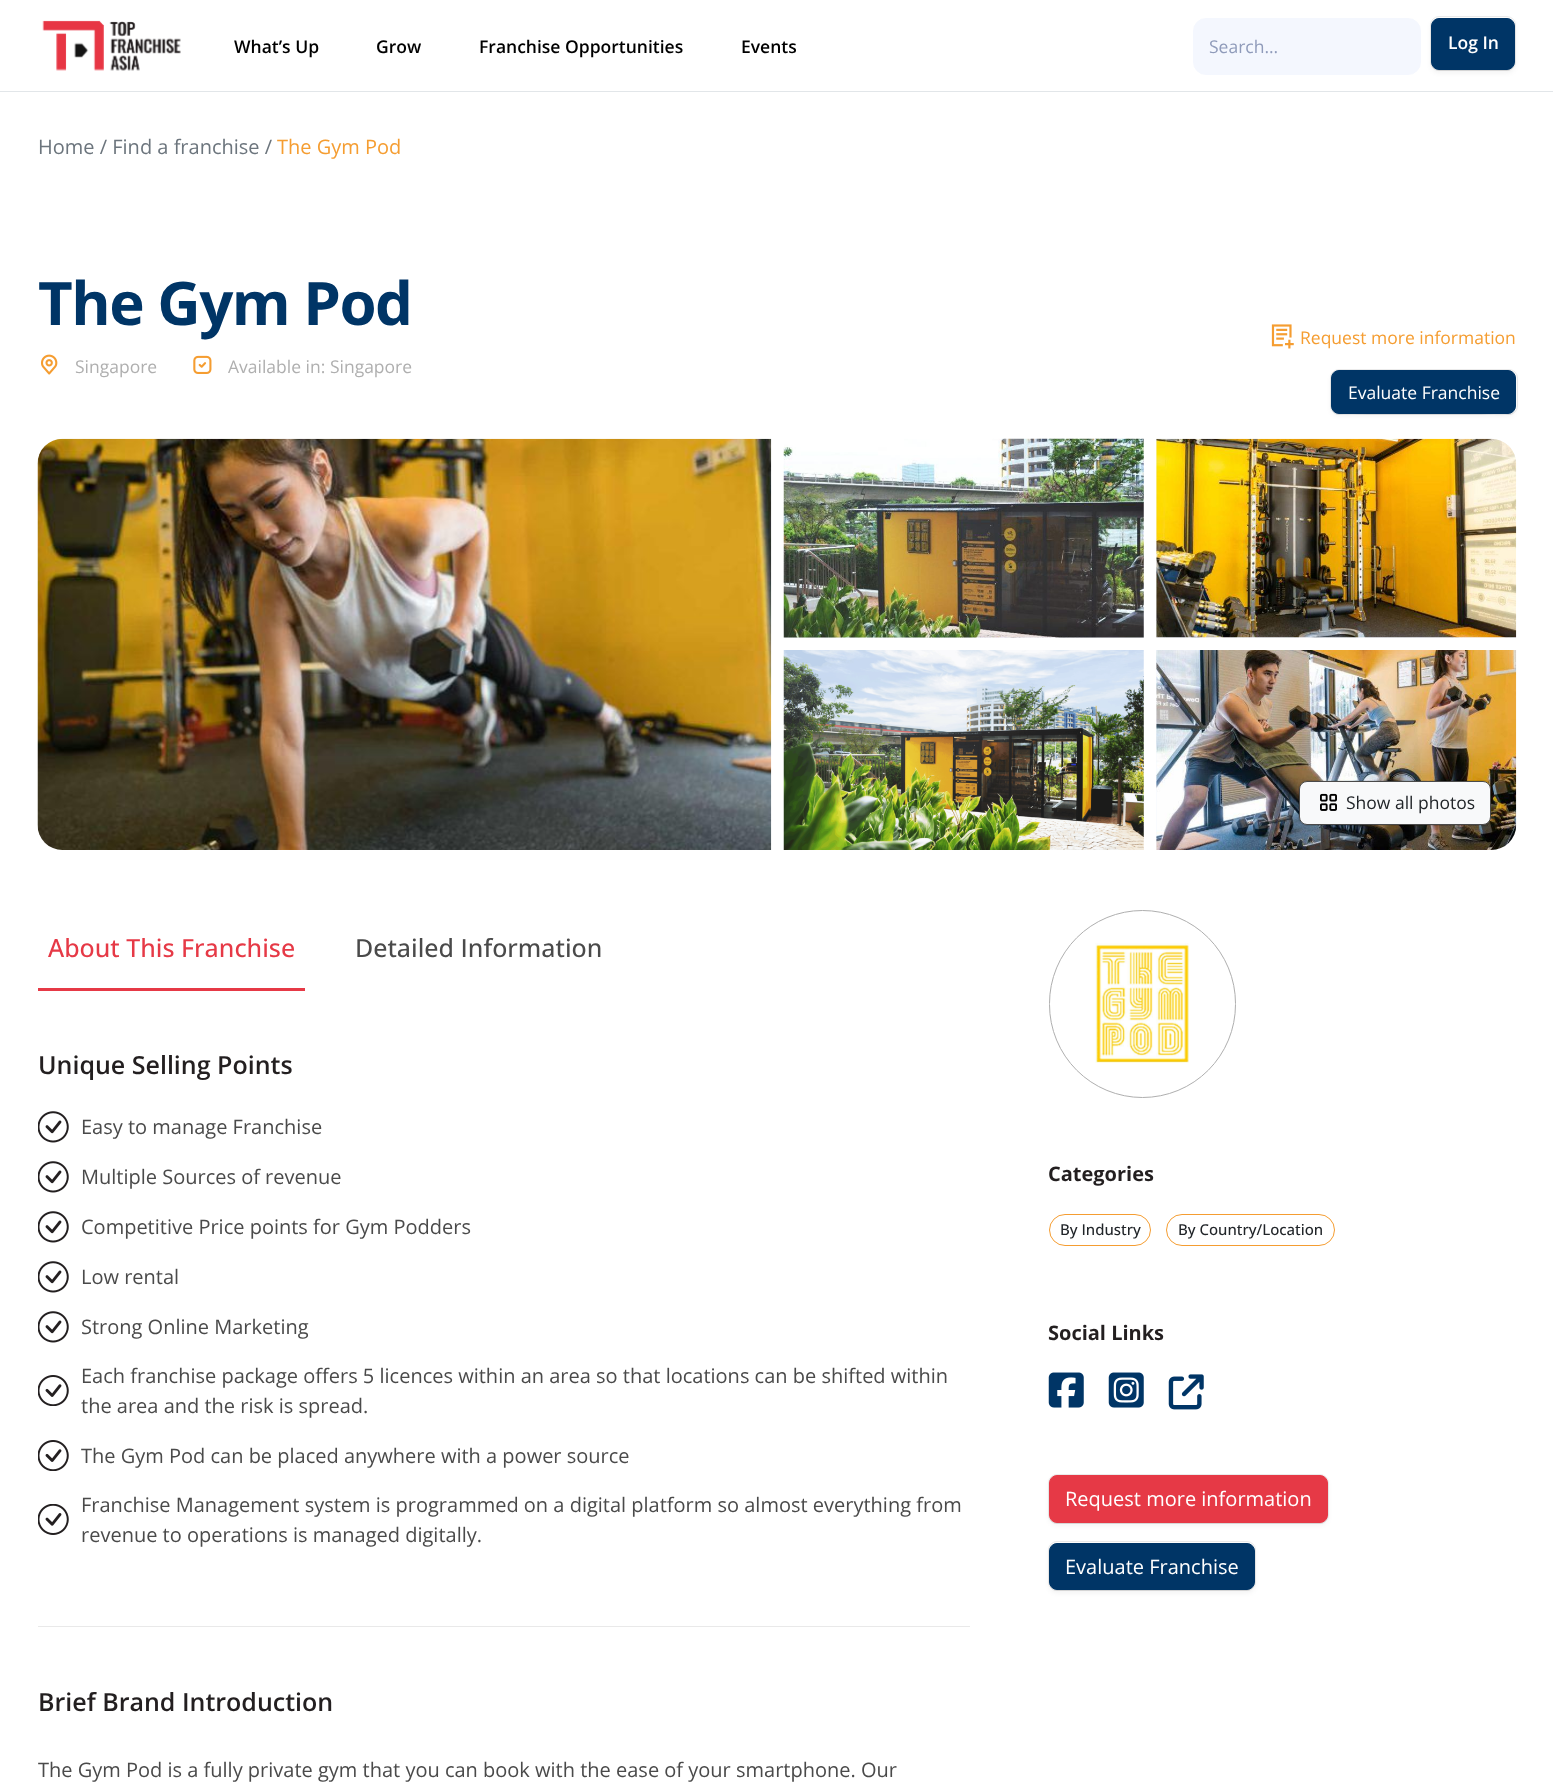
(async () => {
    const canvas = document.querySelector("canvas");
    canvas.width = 1553;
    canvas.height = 1786;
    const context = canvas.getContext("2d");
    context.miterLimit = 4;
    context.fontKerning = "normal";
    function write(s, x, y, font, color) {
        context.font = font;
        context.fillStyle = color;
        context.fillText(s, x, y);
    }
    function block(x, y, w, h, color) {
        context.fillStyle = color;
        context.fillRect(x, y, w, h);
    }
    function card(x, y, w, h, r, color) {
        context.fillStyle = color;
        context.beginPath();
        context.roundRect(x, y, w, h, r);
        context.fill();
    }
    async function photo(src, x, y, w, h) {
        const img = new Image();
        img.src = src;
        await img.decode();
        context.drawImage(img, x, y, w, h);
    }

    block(0, 0, 1553, 1786, "rgb(255, 255, 255)");
    block(0, 91, 1553, 1, "rgb(226, 230, 233)");
    await photo("media/1.png", 42, 20, 139, 51);
    write("What’s Up", 234, 53, "600 17.5px Open Sans", "rgb(0, 0, 0)");
    write("Grow", 376, 53, "600 17.5px Open Sans", "rgb(0, 0, 0)");
    write("Franchise Opportunities", 479, 53, "600 17.5px Open Sans", "rgb(0, 0, 0)");
    write("Events", 741, 53, "600 17.5px Open Sans", "rgb(0, 0, 0)");
    card(1194, 19, 226, 55, 11, "rgb(244, 247, 254)");
    context.beginPath();
    context.roundRect(1193.5, 18.5, 227, 56, 12.5);
    context.strokeStyle = "rgb(244, 247, 254)";
    context.stroke();
    write("Search...", 1209, 53, "17.5px Open Sans", "rgb(143, 155, 186)");
    context.fillStyle = "rgba(0, 0, 0, 0.05)";
    context.filter = "blur(2.5px)";
    context.beginPath();
    context.roundRect(1431, 20, 84, 53, 8);
    context.fill();
    context.filter = "none";
    context.beginPath();
    context.roundRect(1430.5, 16.5, 85, 54, 8.5);
    context.strokeStyle = "rgba(0, 0, 0, 0.08)";
    context.stroke();
    context.beginPath();
    context.moveTo(1431, 25);
    context.lineTo(1431, 63);
    context.bezierCurveTo(1431, 67, 1435, 71, 1439, 71);
    context.lineTo(1507, 71);
    context.bezierCurveTo(1511, 71, 1515, 67, 1515, 63);
    context.lineTo(1515, 62);
    context.bezierCurveTo(1515, 67, 1512, 70, 1508, 70);
    context.lineTo(1439, 70);
    context.bezierCurveTo(1435, 70, 1431, 67, 1431, 62);
    context.closePath();
    context.fill();
    context.fillStyle = "rgb(0, 53, 102)";
    context.beginPath();
    context.roundRect(1431.5, 18.5, 83, 51, 7.5);
    context.fill();
    context.strokeStyle = "rgb(0, 53, 102)";
    context.stroke();
    write("Log In", 1448, 49, "600 17.5px Open Sans", "rgb(255, 255, 255)");
    write("Home / Find a franchise /", 38, 154, "20px Open Sans", "rgb(108, 117, 125)");
    write("The Gym Pod", 277, 154, "20px Open Sans", "rgb(245, 157, 49)");
    context.letterSpacing = "-1.5px";
    write("The Gym Pod", 38, 325, "bold 60px Open Sans", "rgb(0, 53, 102)");
    await photo("media/2.png", 41, 354, 17, 21);
    context.letterSpacing = "0px";
    write("Singapore", 75, 373, "17.5px Open Sans", "rgb(175, 175, 175)");
    await photo("media/3.png", 193, 355, 19, 19);
    write("Available in: Singapore", 228, 373, "17.5px Open Sans", "rgb(175, 175, 175)");
    await photo("media/4.png", 1271, 324, 23, 25);
    write("Request more information", 1300, 344, "17.5px Open Sans", "rgb(245, 157, 49)");
    context.fillStyle = "rgba(0, 0, 0, 0.05)";
    context.filter = "blur(2.5px)";
    context.beginPath();
    context.roundRect(1331, 373, 185, 43, 8);
    context.fill();
    context.filter = "none";
    context.beginPath();
    context.roundRect(1330.5, 369.5, 187, 45, 8.5);
    context.strokeStyle = "rgba(0, 0, 0, 0.08)";
    context.stroke();
    context.beginPath();
    context.moveTo(1331, 377);
    context.lineTo(1331, 407);
    context.bezierCurveTo(1331, 411, 1335, 415, 1339, 415);
    context.lineTo(1508, 415);
    context.bezierCurveTo(1512, 415, 1515, 412, 1516, 409);
    context.bezierCurveTo(1512, 419, 1488, 414, 1480, 414);
    context.lineTo(1367, 414);
    context.bezierCurveTo(1356, 414, 1334, 419, 1331, 408);
    context.closePath();
    context.fill();
    context.fillStyle = "rgb(0, 53, 102)";
    context.beginPath();
    context.roundRect(1331.5, 370.5, 184, 43, 7.5);
    context.fill();
    context.strokeStyle = "rgb(0, 53, 102)";
    context.stroke();
    write("Evaluate Franchise", 1348, 399, "17.5px Open Sans", "rgb(255, 255, 255)");
    await photo("media/5.png", 37, 438, 735, 412);
    block(784, 439, 360, 199, "rgb(244, 247, 254)");
    await photo("media/6.png", 783, 438, 361, 200);
    context.beginPath();
    context.roundRect(1156, 439, 360, 199, [0, 25, 0, 0]);
    context.fill();
    await photo("media/7.png", 1156, 438, 361, 200);
    await photo("media/8.png", 783, 650, 361, 200);
    context.beginPath();
    context.roundRect(1156, 650, 360, 200, [0, 0, 25, 0]);
    context.fill();
    await photo("media/9.png", 1156, 650, 361, 200);
    context.fillStyle = "rgba(0, 0, 0, 0.05)";
    context.filter = "blur(2.5px)";
    context.beginPath();
    context.roundRect(1299, 784, 192, 44, 8);
    context.fill();
    context.filter = "none";
    context.beginPath();
    context.roundRect(1298.5, 780.5, 194, 45, 8.5);
    context.strokeStyle = "rgba(0, 0, 0, 0.08)";
    context.stroke();
    context.beginPath();
    context.moveTo(1299, 821);
    context.bezierCurveTo(1301, 824, 1304, 826, 1307, 826);
    context.lineTo(1483, 826);
    context.bezierCurveTo(1486, 826, 1489, 824, 1491, 821);
    context.bezierCurveTo(1489, 823, 1487, 825, 1484, 825);
    context.lineTo(1306, 825);
    context.bezierCurveTo(1303, 825, 1301, 823, 1299, 821);
    context.closePath();
    context.fill();
    context.fillStyle = "rgb(248, 249, 250)";
    context.beginPath();
    context.roundRect(1299.5, 781.5, 191, 43, 7.5);
    context.fill();
    context.strokeStyle = "rgb(74, 74, 74)";
    context.stroke();
    await photo("media/10.png", 1320, 793, 17, 18);
    write("Show all photos", 1346, 809, "17.5px Open Sans", "rgb(33, 37, 41)");
    block(38, 988, 267, 3, "rgb(230, 57, 70)");
    write("About This Franchise", 48, 957, "500 25px Open Sans", "rgb(230, 57, 70)");
    write("Detailed Information", 355, 957, "500 25px Open Sans", "rgb(74, 74, 74)");
    write("Unique Selling Points", 38, 1074, "600 25px Open Sans", "rgb(35, 31, 32)");
    await photo("media/11.png", 38, 1111, 31, 32);
    write("Easy to manage Franchise", 81, 1134, "20px Open Sans", "rgb(74, 74, 74)");
    await photo("media/11.png", 38, 1161, 31, 32);
    write("Multiple Sources of revenue", 81, 1184, "20px Open Sans", "rgb(74, 74, 74)");
    await photo("media/11.png", 38, 1211, 31, 32);
    write("Competitive Price points for Gym Podders", 81, 1234, "20px Open Sans", "rgb(74, 74, 74)");
    await photo("media/11.png", 38, 1261, 31, 32);
    write("Low rental", 81, 1284, "20px Open Sans", "rgb(74, 74, 74)");
    await photo("media/11.png", 38, 1311, 31, 32);
    write("Strong Online Marketing", 81, 1334, "20px Open Sans", "rgb(74, 74, 74)");
    await photo("media/12.png", 38, 1375, 31, 31);
    write("Each franchise package offers 5 licences within an area so that locations can be shifted within", 81, 1383, "20px Open Sans", "rgb(74, 74, 74)");
    write("the area and the risk is spread.", 81, 1413, "20px Open Sans", "rgb(74, 74, 74)");
    await photo("media/12.png", 38, 1440, 31, 31);
    write("The Gym Pod can be placed anywhere with a power source", 81, 1463, "20px Open Sans", "rgb(74, 74, 74)");
    await photo("media/13.png", 38, 1504, 31, 31);
    write("Franchise Management system is programmed on a digital platform so almost everything from", 81, 1512, "20px Open Sans", "rgb(74, 74, 74)");
    write("revenue to operations is managed digitally.", 81, 1542, "20px Open Sans", "rgb(74, 74, 74)");
    block(38, 1626, 932, 1, "rgb(233, 233, 233)");
    write("Brief Brand Introduction", 38, 1711, "600 25px Open Sans", "rgb(35, 31, 32)");
    write("The Gym Pod is a fully private gym that you can book with the ease of your smartphone. Our", 38, 1777, "20px Open Sans", "rgb(74, 74, 74)");
    context.beginPath();
    context.roundRect(1049.5, 910.5, 186, 187, 93);
    context.strokeStyle = "rgb(175, 175, 175)";
    context.stroke();
    await photo("media/14.png", 1095, 943, 94, 120);
    write("Categories", 1048, 1181, "bold 20px Open Sans", "rgb(35, 31, 32)");
    context.beginPath();
    context.roundRect(1049.5, 1214.5, 101, 31, 15.5);
    context.strokeStyle = "rgb(245, 157, 49)";
    context.stroke();
    write("By Industry", 1060, 1235, "500 15px Open Sans", "rgb(33, 37, 41)");
    context.beginPath();
    context.roundRect(1166.5, 1214.5, 168, 31, 15.5);
    context.stroke();
    write("By Country/Location", 1178, 1235, "500 15px Open Sans", "rgb(33, 37, 41)");
    write("Social Links", 1048, 1340, "bold 20px Open Sans", "rgb(35, 31, 32)");
    await photo("media/15.png", 1048, 1372, 36, 36);
    await photo("media/16.png", 1108, 1372, 36, 36);
    await photo("media/17.png", 1168, 1374, 36, 36);
    context.fillStyle = "rgba(0, 0, 0, 0.05)";
    context.filter = "blur(2.5px)";
    context.beginPath();
    context.roundRect(1049, 1478, 279, 47, 8);
    context.fill();
    context.filter = "none";
    context.beginPath();
    context.roundRect(1048.5, 1474.5, 280, 49, 8.5);
    context.strokeStyle = "rgba(0, 0, 0, 0.08)";
    context.stroke();
    context.beginPath();
    context.moveTo(1049, 1517);
    context.bezierCurveTo(1050, 1521, 1053, 1524, 1057, 1524);
    context.lineTo(1320, 1524);
    context.bezierCurveTo(1324, 1524, 1328, 1520, 1328, 1516);
    context.lineTo(1328, 1484);
    context.lineTo(1327, 1481);
    context.lineTo(1328, 1515);
    context.bezierCurveTo(1328, 1519, 1324, 1522, 1320, 1522);
    context.lineTo(1056, 1522);
    context.bezierCurveTo(1053, 1522, 1050, 1520, 1049, 1517);
    context.closePath();
    context.fill();
    context.fillStyle = "rgb(230, 57, 70)";
    context.beginPath();
    context.roundRect(1049.5, 1475.5, 278, 47, 7.5);
    context.fill();
    context.strokeStyle = "rgb(230, 57, 70)";
    context.stroke();
    write("Request more information", 1065, 1506, "20px Open Sans", "rgb(255, 255, 255)");
    context.fillStyle = "rgba(0, 0, 0, 0.05)";
    context.filter = "blur(2.5px)";
    context.beginPath();
    context.roundRect(1049, 1545, 206, 48, 8);
    context.fill();
    context.filter = "none";
    context.beginPath();
    context.roundRect(1048.5, 1541.5, 207, 49, 8.5);
    context.strokeStyle = "rgba(0, 0, 0, 0.08)";
    context.stroke();
    context.beginPath();
    context.moveTo(1049, 1586);
    context.bezierCurveTo(1051, 1589, 1054, 1591, 1057, 1591);
    context.lineTo(1247, 1591);
    context.bezierCurveTo(1251, 1591, 1255, 1587, 1255, 1583);
    context.lineTo(1255, 1582);
    context.bezierCurveTo(1255, 1587, 1252, 1590, 1248, 1590);
    context.lineTo(1056, 1590);
    context.bezierCurveTo(1053, 1590, 1051, 1588, 1049, 1586);
    context.closePath();
    context.fill();
    context.fillStyle = "rgb(0, 53, 102)";
    context.beginPath();
    context.roundRect(1049.5, 1543.5, 205, 46, 7.5);
    context.fill();
    context.strokeStyle = "rgb(0, 53, 102)";
    context.stroke();
    write("Evaluate Franchise", 1065, 1574, "20px Open Sans", "rgb(255, 255, 255)");
})();
